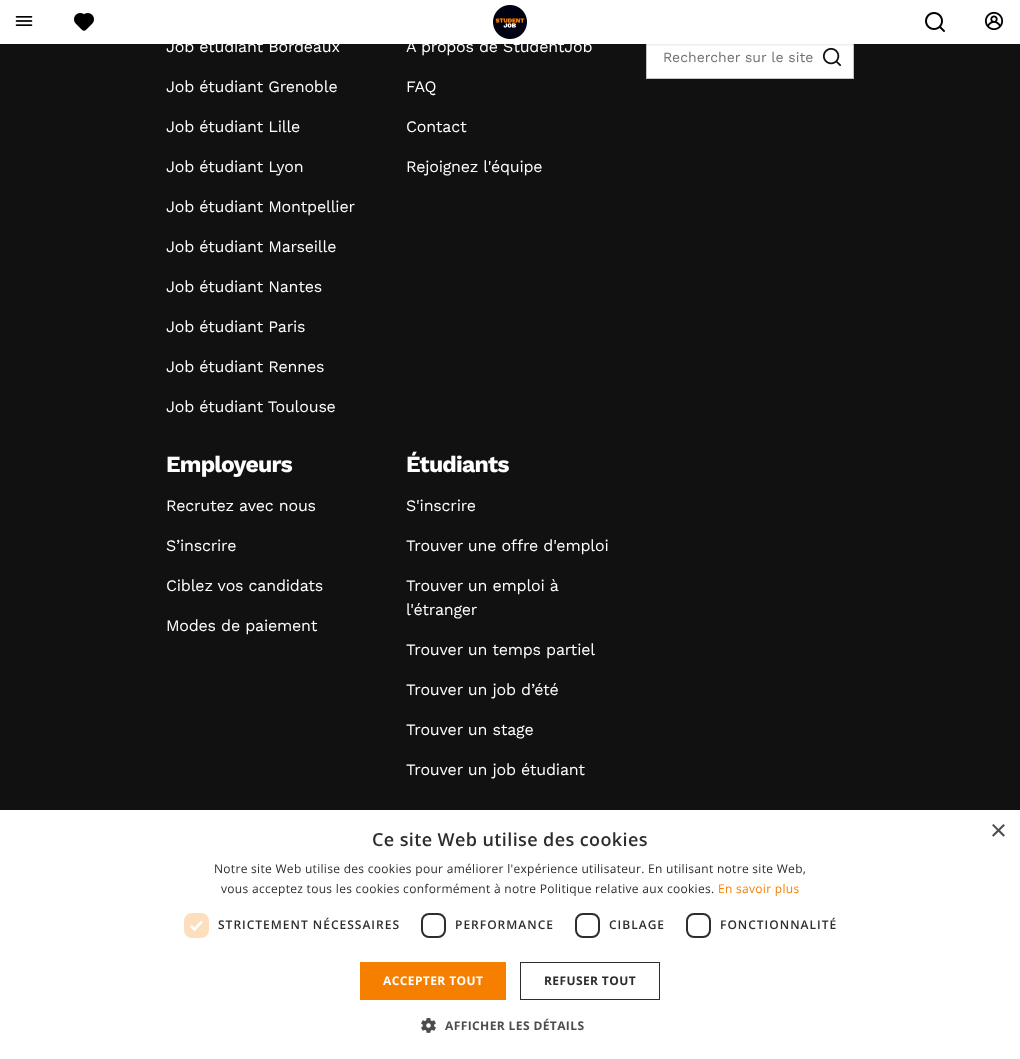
(async () => {
    const canvas = document.querySelector("canvas");
    canvas.width = 1020;
    canvas.height = 1059;
    const context = canvas.getContext("2d");
    context.miterLimit = 4;
    context.fontKerning = "normal";
    function write(s, x, y, font, color) {
        context.font = font;
        context.fillStyle = color;
        context.fillText(s, x, y);
    }
    function block(x, y, w, h, color) {
        context.fillStyle = color;
        context.fillRect(x, y, w, h);
    }
    function card(x, y, w, h, r, color) {
        context.fillStyle = color;
        context.beginPath();
        context.roundRect(x, y, w, h, r);
        context.fill();
    }
    async function photo(src, x, y, w, h) {
        const img = new Image();
        img.src = src;
        await img.decode();
        context.drawImage(img, x, y, w, h);
    }

    block(0, 0, 1020, 1059, "rgb(17, 17, 17)");
    block(647, 44, 206, 34, "rgb(255, 255, 255)");
    context.strokeStyle = "rgb(195, 195, 195)";
    context.strokeRect(646.5, 35.5, 207, 43);
    await photo("media/6.png", 822, 47, 20, 19);
    context.fillStyle = "rgba(0, 0, 0, 0.1)";
    context.filter = "blur(1px)";
    context.beginPath();
    context.rect(0, 1, 1020, 44);
    context.fill();
    context.filter = "none";
    block(0, 0, 1020, 44, "rgb(255, 255, 255)");
    await photo("media/1.png", 15, 16, 18, 10);
    await photo("media/2.png", 74, 13, 20, 18);
    await photo("media/3.png", 493, 5, 34, 34);
    await photo("media/4.png", 925, 12, 20, 20);
    await photo("media/5.png", 984, 11, 20, 20);
    context.letterSpacing = "-0.2px";
    write("Job étudiant Bordeaux", 166, 52, "16px Work Sans", "rgb(255, 255, 255)");
    write("Job étudiant Grenoble", 166, 92, "16px Work Sans", "rgb(255, 255, 255)");
    write("Job étudiant Lille", 166, 132, "16px Work Sans", "rgb(255, 255, 255)");
    write("Job étudiant Lyon", 166, 172, "16px Work Sans", "rgb(255, 255, 255)");
    write("Job étudiant Montpellier", 166, 212, "16px Work Sans", "rgb(255, 255, 255)");
    write("Job étudiant Marseille", 166, 252, "16px Work Sans", "rgb(255, 255, 255)");
    write("Job étudiant Nantes", 166, 292, "16px Work Sans", "rgb(255, 255, 255)");
    write("Job étudiant Paris", 166, 332, "16px Work Sans", "rgb(255, 255, 255)");
    write("Job étudiant Rennes", 166, 372, "16px Work Sans", "rgb(255, 255, 255)");
    write("Job étudiant Toulouse", 166, 412, "16px Work Sans", "rgb(255, 255, 255)");
    write("A propos de StudentJob", 406, 52, "16px Work Sans", "rgb(255, 255, 255)");
    write("FAQ", 406, 92, "16px Work Sans", "rgb(255, 255, 255)");
    write("Contact", 406, 132, "16px Work Sans", "rgb(255, 255, 255)");
    write("Rejoignez l'équipe", 406, 172, "16px Work Sans", "rgb(255, 255, 255)");
    context.letterSpacing = "-0.75px";
    write("Employeurs", 166, 472, "bold 23px Work Sans", "rgb(255, 255, 255)");
    context.letterSpacing = "-0.2px";
    write("Recrutez avec nous", 166, 511, "16px Work Sans", "rgb(255, 255, 255)");
    write("S’inscrire", 166, 551, "16px Work Sans", "rgb(255, 255, 255)");
    write("Ciblez vos candidats", 166, 591, "16px Work Sans", "rgb(255, 255, 255)");
    write("Modes de paiement", 166, 631, "16px Work Sans", "rgb(255, 255, 255)");
    context.letterSpacing = "-0.75px";
    write("Étudiants", 406, 472, "bold 23px Work Sans", "rgb(255, 255, 255)");
    context.letterSpacing = "-0.2px";
    write("S'inscrire", 406, 511, "16px Work Sans", "rgb(255, 255, 255)");
    write("Trouver une offre d'emploi", 406, 551, "16px Work Sans", "rgb(255, 255, 255)");
    write("Trouver un emploi à", 406, 591, "16px Work Sans", "rgb(255, 255, 255)");
    write("l'étranger", 406, 615, "16px Work Sans", "rgb(255, 255, 255)");
    write("Trouver un temps partiel", 406, 655, "16px Work Sans", "rgb(255, 255, 255)");
    write("Trouver un job d’été", 406, 695, "16px Work Sans", "rgb(255, 255, 255)");
    write("Trouver un stage", 406, 735, "16px Work Sans", "rgb(255, 255, 255)");
    write("Trouver un job étudiant", 406, 775, "16px Work Sans", "rgb(255, 255, 255)");
    context.letterSpacing = "0px";
    write("Rechercher sur le site", 663, 62, "14px Work Sans", "rgb(113, 113, 113)");
    block(0, 810, 1020, 249, "rgb(255, 255, 255)");
    write("×", 990, 840, "29px Liberation Sans", "rgb(77, 77, 77)");
    context.letterSpacing = "0.4px";
    write("Ce site Web utilise des cookies", 372, 846, "600 18px Open Sans", "rgb(45, 45, 45)");
    context.letterSpacing = "0.3px";
    write("Notre site Web utilise des cookies pour améliorer l'expérience utilisateur. En utilisant notre site Web,", 214, 873, "12px Open Sans", "rgb(45, 45, 45)");
    write("vous acceptez tous les cookies conformément à notre Politique relative aux cookies.", 221, 893, "12px Open Sans", "rgb(45, 45, 45)");
    write("En savoir plus", 718, 893, "12px Open Sans", "rgb(247, 127, 0)");
    card(184, 913, 25, 25, 8, "rgb(253, 222, 189)");
    context.beginPath();
    context.moveTo(191, 926);
    context.lineTo(194.5, 929.5);
    context.lineTo(202, 921.5);
    context.strokeStyle = "rgb(255, 255, 255)";
    context.lineWidth = 2.6;
    context.stroke();
    context.letterSpacing = "1px";
    write("STRICTEMENT NÉCESSAIRES", 218, 929, "600 12px Open Sans", "rgb(45, 45, 45)");
    context.beginPath();
    context.roundRect(422, 914, 23, 23, 7);
    context.strokeStyle = "rgb(45, 45, 45)";
    context.lineWidth = 2;
    context.stroke();
    write("PERFORMANCE", 455, 929, "600 12px Open Sans", "rgb(45, 45, 45)");
    context.beginPath();
    context.roundRect(576, 914, 23, 23, 7);
    context.stroke();
    write("CIBLAGE", 609, 929, "600 12px Open Sans", "rgb(45, 45, 45)");
    context.beginPath();
    context.roundRect(687, 914, 23, 23, 7);
    context.stroke();
    write("FONCTIONNALITÉ", 720, 929, "600 12px Open Sans", "rgb(45, 45, 45)");
    block(360, 962, 146, 38, "rgb(247, 127, 0)");
    context.letterSpacing = "0.4px";
    write("ACCEPTER TOUT", 383, 985, "bold 12px Open Sans", "rgb(255, 255, 255)");
    context.lineWidth = 1;
    context.strokeRect(520.5, 962.5, 139, 37);
    write("REFUSER TOUT", 544, 985, "bold 12px Open Sans", "rgb(45, 45, 45)");
    await photo("media/7.png", 421, 1018, 15, 15);
    write("AFFICHER LES DÉTAILS", 445, 1030, "bold 12px Open Sans", "rgb(77, 77, 77)");
})();
